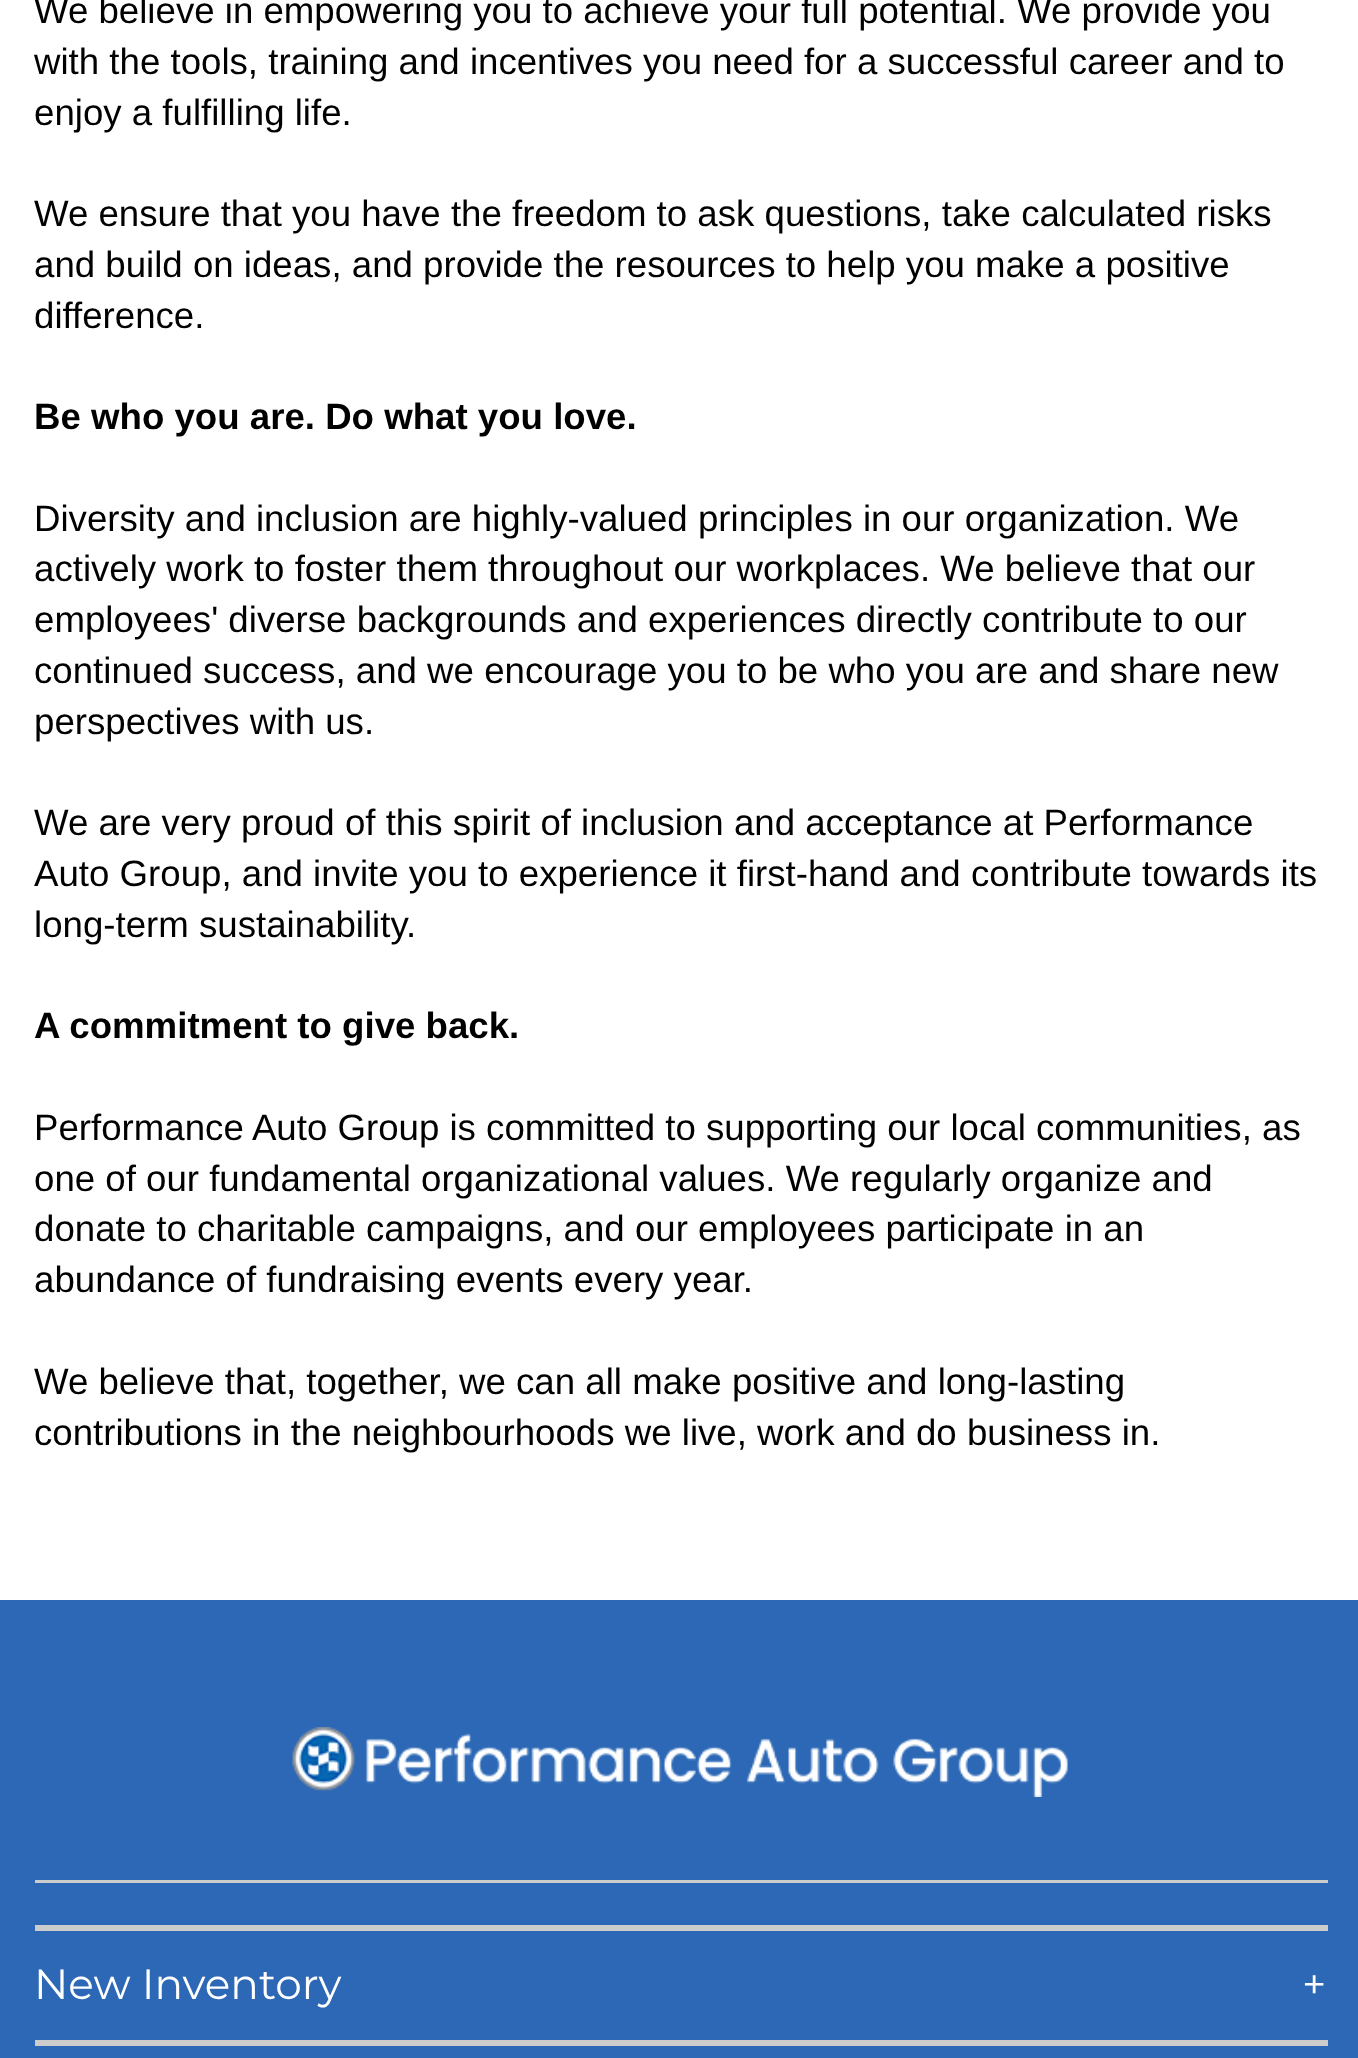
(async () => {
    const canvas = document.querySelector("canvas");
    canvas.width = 1358;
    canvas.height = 2058;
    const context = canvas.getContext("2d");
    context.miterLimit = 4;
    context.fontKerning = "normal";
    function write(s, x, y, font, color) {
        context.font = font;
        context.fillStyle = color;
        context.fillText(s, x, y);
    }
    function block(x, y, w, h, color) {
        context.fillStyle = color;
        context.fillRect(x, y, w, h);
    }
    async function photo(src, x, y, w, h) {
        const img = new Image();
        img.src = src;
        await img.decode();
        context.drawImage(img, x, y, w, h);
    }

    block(0, 0, 1358, 2058, "rgb(255, 255, 255)");
    write("We believe in empowering you to achieve your full potential. We provide you", 34, 23, "36.65px Liberation Sans", "rgb(0, 0, 0)");
    write("with the tools, training and incentives you need for a successful career and to", 34, 74, "36.65px Liberation Sans", "rgb(0, 0, 0)");
    write("enjoy a fulfilling life.", 34, 125, "36.65px Liberation Sans", "rgb(0, 0, 0)");
    write("We ensure that you have the freedom to ask questions, take calculated risks", 34, 226, "36.65px Liberation Sans", "rgb(0, 0, 0)");
    write("and build on ideas, and provide the resources to help you make a positive", 34, 277, "36.65px Liberation Sans", "rgb(0, 0, 0)");
    write("difference.", 34, 328, "36.65px Liberation Sans", "rgb(0, 0, 0)");
    write("Be who you are. Do what you love.", 34, 429, "bold 36.65px Liberation Sans", "rgb(0, 0, 0)");
    write("Diversity and inclusion are highly-valued principles in our organization. We", 34, 531, "36.65px Liberation Sans", "rgb(0, 0, 0)");
    write("actively work to foster them throughout our workplaces. We believe that our", 34, 581, "36.65px Liberation Sans", "rgb(0, 0, 0)");
    write("employees' diverse backgrounds and experiences directly contribute to our", 34, 632, "36.65px Liberation Sans", "rgb(0, 0, 0)");
    write("continued success, and we encourage you to be who you are and share new", 34, 683, "36.65px Liberation Sans", "rgb(0, 0, 0)");
    write("perspectives with us.", 34, 734, "36.65px Liberation Sans", "rgb(0, 0, 0)");
    write("We are very proud of this spirit of inclusion and acceptance at Performance", 34, 835, "36.65px Liberation Sans", "rgb(0, 0, 0)");
    write("Auto Group, and invite you to experience it first-hand and contribute towards its", 34, 886, "36.65px Liberation Sans", "rgb(0, 0, 0)");
    write("long-term sustainability.", 34, 937, "36.65px Liberation Sans", "rgb(0, 0, 0)");
    write("A commitment to give back.", 34, 1038, "bold 36.65px Liberation Sans", "rgb(0, 0, 0)");
    write("Performance Auto Group is committed to supporting our local communities, as", 34, 1140, "36.65px Liberation Sans", "rgb(0, 0, 0)");
    write("one of our fundamental organizational values. We regularly organize and", 34, 1191, "36.65px Liberation Sans", "rgb(0, 0, 0)");
    write("donate to charitable campaigns, and our employees participate in an", 34, 1241, "36.65px Liberation Sans", "rgb(0, 0, 0)");
    write("abundance of fundraising events every year.", 34, 1292, "36.65px Liberation Sans", "rgb(0, 0, 0)");
    write("We believe that, together, we can all make positive and long-lasting", 34, 1394, "36.65px Liberation Sans", "rgb(0, 0, 0)");
    write("contributions in the neighbourhoods we live, work and do business in.", 34, 1445, "36.65px Liberation Sans", "rgb(0, 0, 0)");
    block(0, 1600, 1358, 458, "rgb(44, 104, 181)");
    await photo("media/1.png", 292, 1727, 776, 70);
    block(35, 1880, 1293, 3, "rgb(204, 204, 204)");
    block(35, 1925, 1293, 6, "rgb(204, 204, 204)");
    block(35, 2040, 1293, 6, "rgb(204, 204, 204)");
    write("New Inventory", 34, 1999, "42.25px Montserrat", "rgb(255, 255, 255)");
    write("+", 1302, 1999, "42.25px Montserrat", "rgb(255, 255, 255)");
})();
